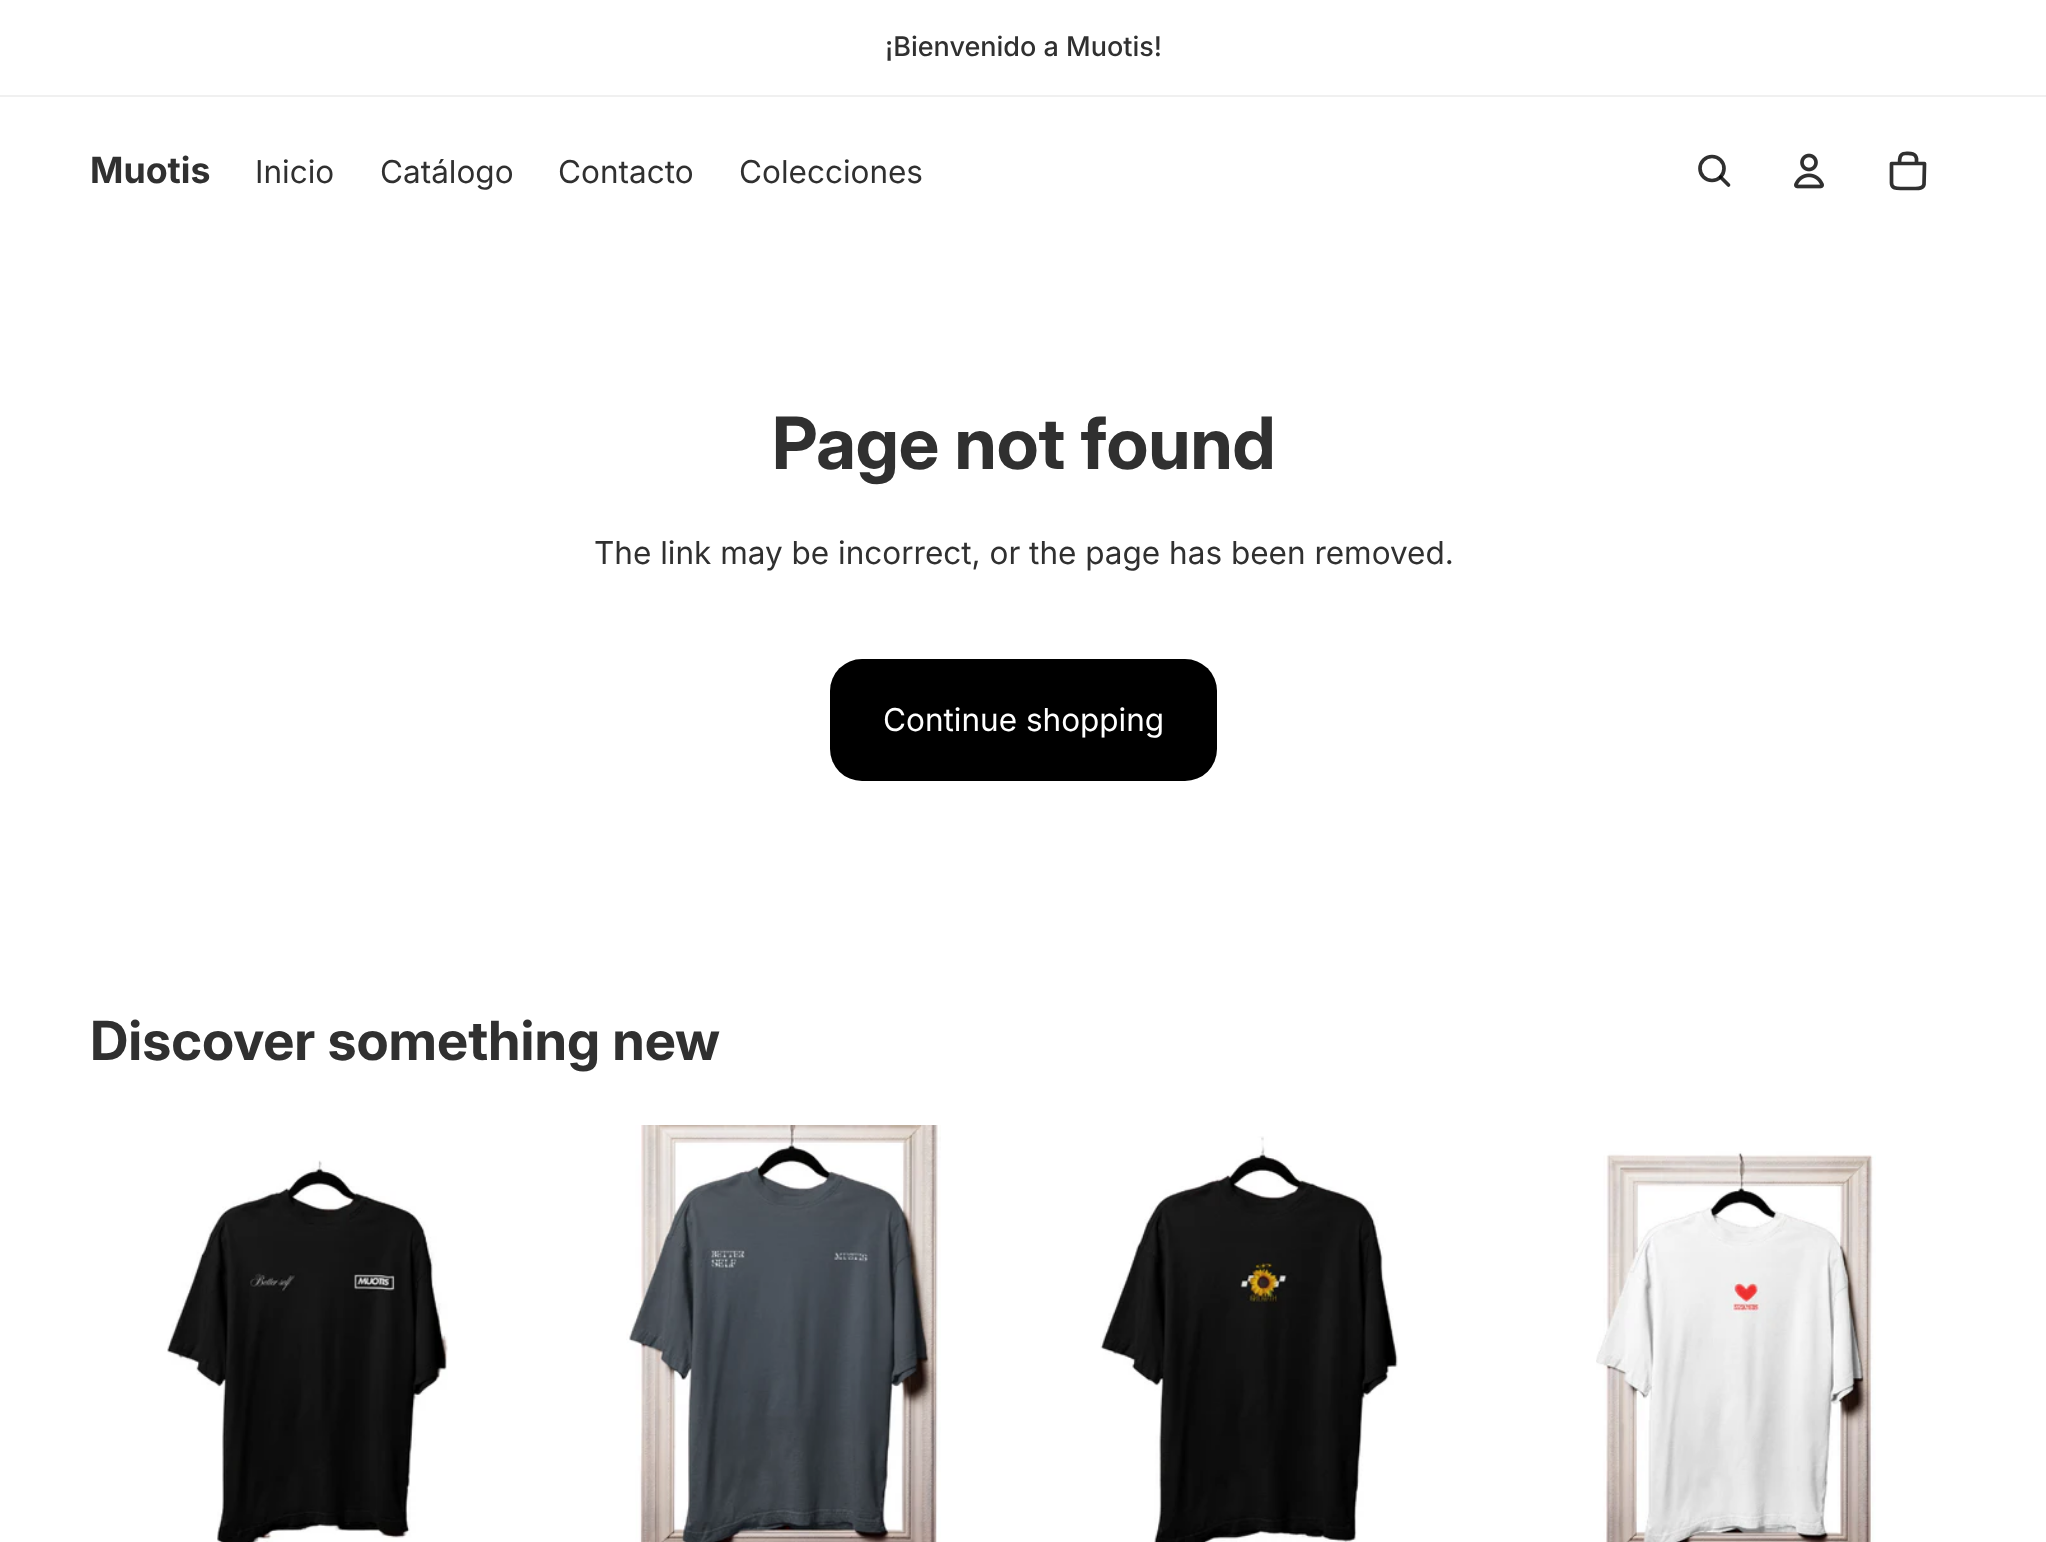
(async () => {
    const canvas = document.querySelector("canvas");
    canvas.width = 2046;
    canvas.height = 1542;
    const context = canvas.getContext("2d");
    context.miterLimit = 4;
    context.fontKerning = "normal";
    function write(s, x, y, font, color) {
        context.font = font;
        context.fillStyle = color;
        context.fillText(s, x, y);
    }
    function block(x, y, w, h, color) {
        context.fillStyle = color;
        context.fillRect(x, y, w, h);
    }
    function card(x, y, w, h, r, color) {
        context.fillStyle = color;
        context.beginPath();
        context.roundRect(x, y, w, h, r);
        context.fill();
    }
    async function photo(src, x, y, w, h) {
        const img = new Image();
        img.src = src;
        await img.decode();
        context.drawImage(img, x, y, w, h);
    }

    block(0, 0, 2046, 1542, "rgb(255, 255, 255)");
    block(0, 95, 2046, 2, "rgb(240, 240, 240)");
    write("¡Bienvenido a Muotis!", 885, 56, "500 27px Inter", "rgb(48, 48, 48)");
    write("Muotis", 90, 183, "bold 36px 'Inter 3'", "rgb(48, 48, 48)");
    write("Inicio", 255, 183, "31.5px Inter", "rgb(48, 48, 48)");
    write("Catálogo", 380, 183, "31.5px Inter", "rgb(48, 48, 48)");
    write("Contacto", 558, 183, "31.5px Inter", "rgb(48, 48, 48)");
    write("Colecciones", 739, 183, "31.5px Inter", "rgb(48, 48, 48)");
    context.beginPath();
    context.arc(1712, 168.5, 12, 0, Math.PI * 2);
    context.strokeStyle = "rgb(48, 48, 48)";
    context.lineWidth = 3.7;
    context.stroke();
    context.beginPath();
    context.moveTo(1720.5, 177);
    context.lineTo(1728.5, 185);
    context.strokeStyle = "rgba(0, 0, 0, 0.81)";
    context.lineCap = "round";
    context.lineJoin = "round";
    context.stroke();
    await photo("media/1.png", 1794, 153, 30, 36);
    context.beginPath();
    context.moveTo(1891.5, 163.5);
    context.lineTo(1924.5, 163.5);
    context.lineTo(1924, 184.5);
    context.bezierCurveTo(1923, 188.5, 1919, 188.5, 1915.5, 188.5);
    context.lineTo(1900.5, 188.5);
    context.bezierCurveTo(1896.5, 188.5, 1891.5, 188.5, 1891.5, 183);
    context.closePath();
    context.moveTo(1905, 153.5);
    context.bezierCurveTo(1909.5, 153.5, 1915.5, 152.5, 1916.5, 158.5);
    context.lineTo(1916.5, 163.5);
    context.lineTo(1899.5, 163.5);
    context.bezierCurveTo(1899.5, 159, 1899.5, 153.5, 1905, 153.5);
    context.strokeStyle = "rgb(48, 48, 48)";
    context.stroke();
    write("Page not found", 772, 469, "bold 72px Inter", "rgb(48, 48, 48)");
    write("The link may be incorrect, or the page has been removed.", 594, 564, "31.5px Inter", "rgb(48, 48, 48)");
    card(830, 659, 387, 122, 32, "rgb(0, 0, 0)");
    write("Continue shopping", 883, 731, "31.5px Inter", "rgb(255, 255, 255)");
    write("Discover something new", 90, 1060, "bold 54px 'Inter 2'", "rgb(48, 48, 48)");
    await photo("media/2.png", 167, 1160, 281, 382);
    await photo("media/3.png", 626, 1125, 315, 417);
    await photo("media/4.png", 1100, 1136, 298, 406);
    await photo("media/5.png", 1596, 1151, 280, 391);
})();
